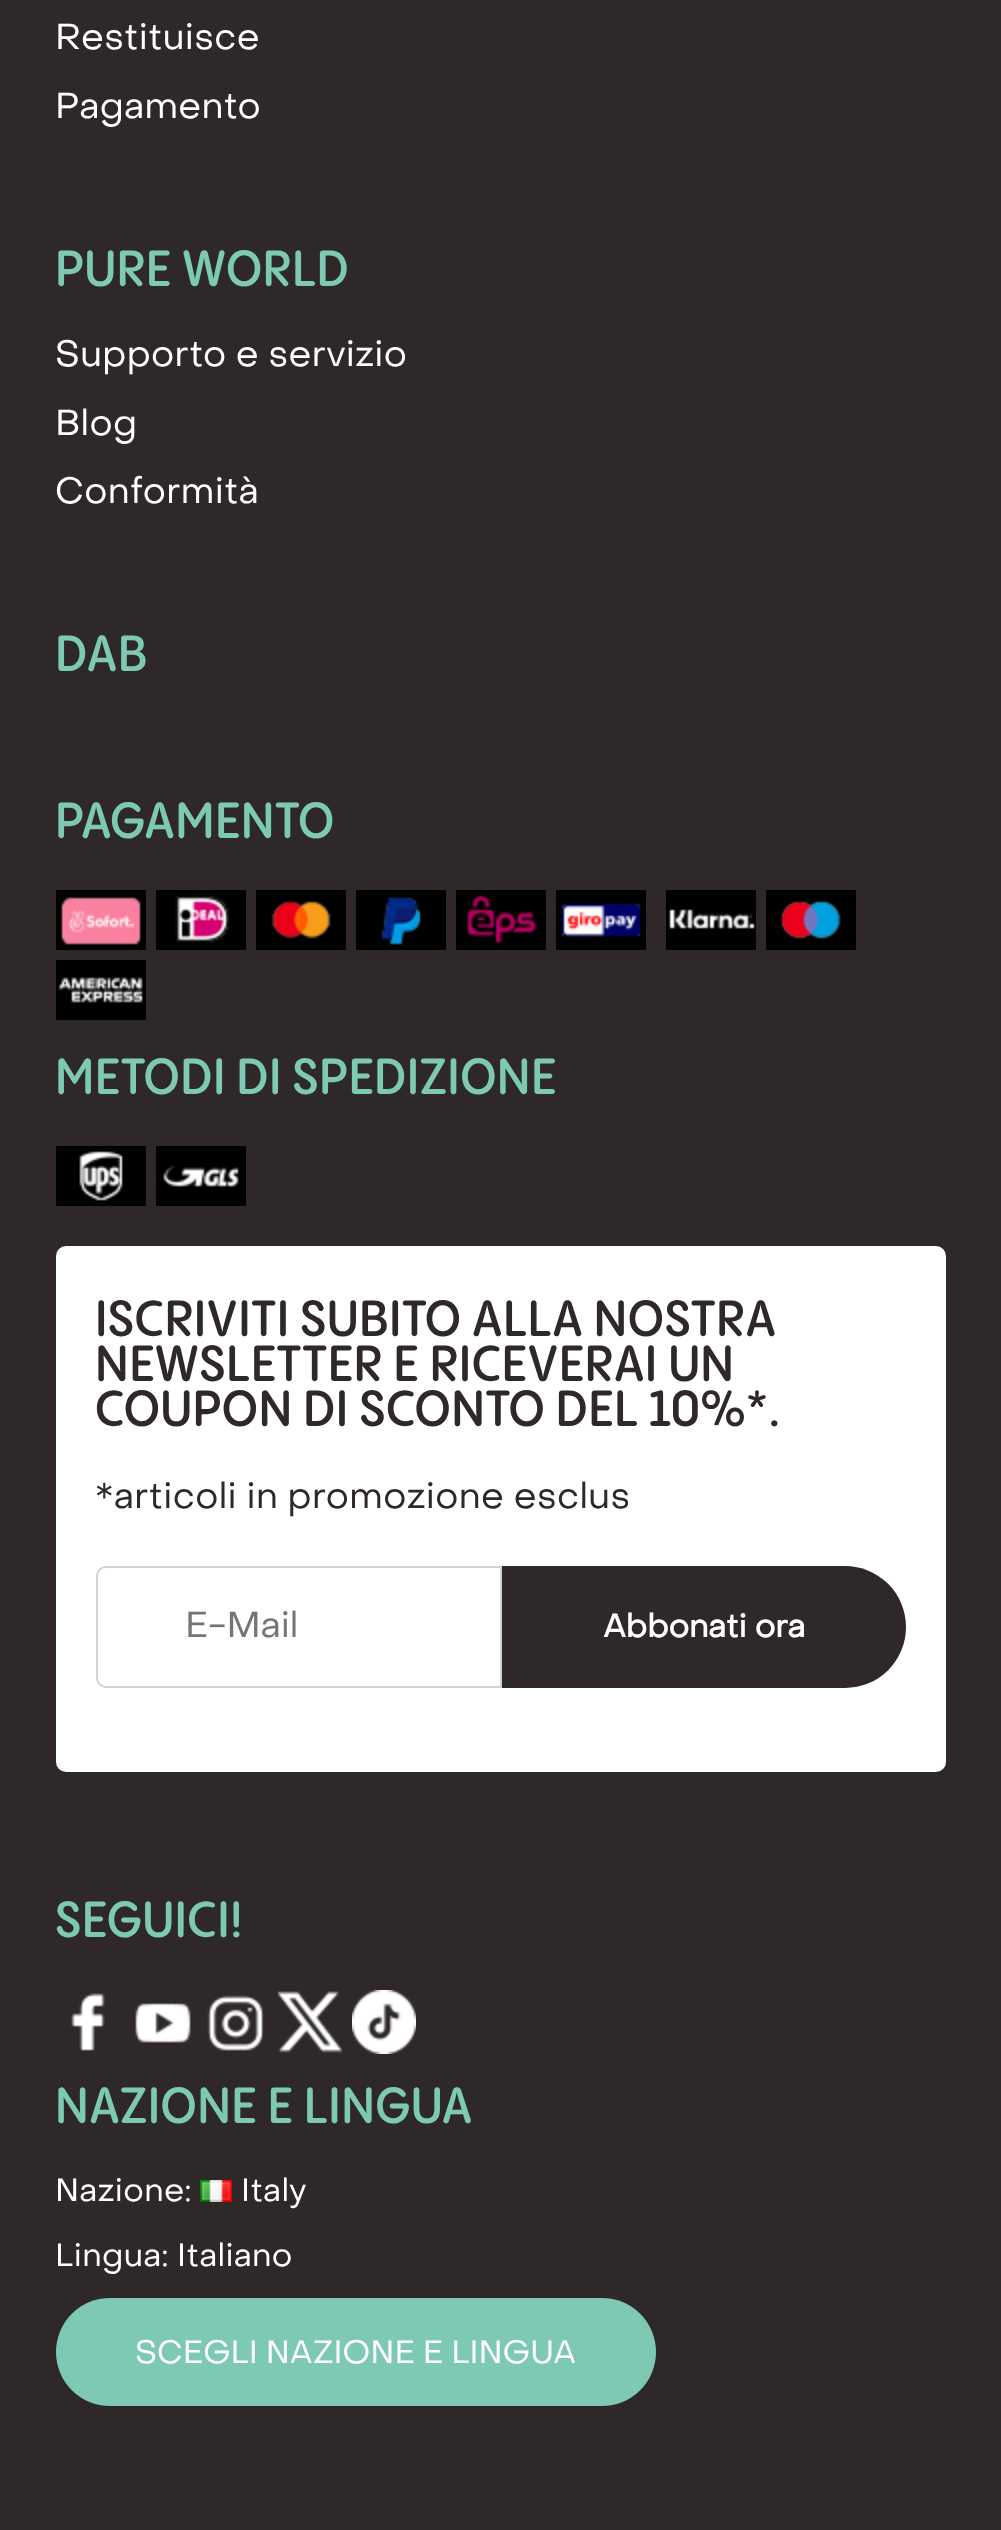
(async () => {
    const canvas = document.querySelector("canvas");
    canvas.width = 1001;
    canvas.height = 2530;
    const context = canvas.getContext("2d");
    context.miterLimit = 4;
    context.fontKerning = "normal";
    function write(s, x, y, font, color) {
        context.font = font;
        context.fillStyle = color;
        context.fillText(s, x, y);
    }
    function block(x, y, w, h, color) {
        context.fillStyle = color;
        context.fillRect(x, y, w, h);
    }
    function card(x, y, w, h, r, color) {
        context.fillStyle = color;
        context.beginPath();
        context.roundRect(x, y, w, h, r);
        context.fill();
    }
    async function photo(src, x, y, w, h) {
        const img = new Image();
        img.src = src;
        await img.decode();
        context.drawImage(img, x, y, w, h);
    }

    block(0, 0, 1001, 2530, "rgb(46, 41, 40)");
    context.letterSpacing = "0.4px";
    write("Restituisce", 55, 49, "36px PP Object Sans", "rgb(255, 255, 255)");
    write("Pagamento", 55, 118, "36px PP Object Sans", "rgb(255, 255, 255)");
    write("PURE WORLD", 55, 286, "600 50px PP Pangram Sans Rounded", "rgb(126, 201, 180)");
    write("Supporto e servizio", 55, 366, "36px PP Object Sans", "rgb(255, 255, 255)");
    write("Blog", 55, 435, "36px PP Object Sans", "rgb(255, 255, 255)");
    write("Conformità", 55, 503, "36px PP Object Sans", "rgb(255, 255, 255)");
    write("DAB", 55, 671, "600 50px PP Pangram Sans Rounded", "rgb(126, 201, 180)");
    write("PAGAMENTO", 55, 838, "600 50px PP Pangram Sans Rounded", "rgb(126, 201, 180)");
    await photo("media/1.png", 56, 890, 90, 60);
    await photo("media/2.png", 156, 890, 90, 60);
    await photo("media/3.png", 256, 890, 90, 60);
    await photo("media/4.png", 356, 890, 90, 60);
    await photo("media/5.png", 456, 890, 90, 60);
    await photo("media/6.png", 556, 890, 90, 60);
    await photo("media/7.png", 666, 890, 90, 60);
    await photo("media/8.png", 766, 890, 90, 60);
    await photo("media/9.png", 56, 960, 90, 60);
    write("METODI DI SPEDIZIONE", 55, 1094, "600 50px PP Pangram Sans Rounded", "rgb(126, 201, 180)");
    await photo("media/10.png", 56, 1146, 90, 60);
    await photo("media/11.png", 156, 1146, 90, 60);
    card(56, 1246, 890, 526, 10, "rgb(255, 255, 255)");
    write("ISCRIVITI SUBITO ALLA NOSTRA", 95, 1336, "600 50px PP Pangram Sans Rounded", "rgb(46, 41, 40)");
    write("NEWSLETTER E RICEVERAI UN", 95, 1381, "600 50px PP Pangram Sans Rounded", "rgb(46, 41, 40)");
    write("COUPON DI SCONTO DEL 10%*.", 95, 1426, "600 50px PP Pangram Sans Rounded", "rgb(46, 41, 40)");
    write("*articoli in promozione esclus", 95, 1508, "36px PP Object Sans", "rgb(46, 41, 40)");
    context.beginPath();
    context.roundRect(97, 1567, 404, 120, [9, 0, 0, 9]);
    context.strokeStyle = "rgb(210, 210, 210)";
    context.lineWidth = 2;
    context.stroke();
    context.letterSpacing = "0px";
    write("E-Mail", 185, 1637, "36px PP Object Sans", "rgb(117, 117, 117)");
    context.fillStyle = "rgb(46, 41, 40)";
    context.beginPath();
    context.roundRect(502, 1566, 404, 122, [0, 61, 61, 0]);
    context.fill();
    write("Abbonati ora", 603, 1637, "bold 32px PP Object Sans", "rgb(255, 255, 255)");
    context.letterSpacing = "0.4px";
    write("SEGUICI!", 55, 1937, "600 50px PP Pangram Sans Rounded", "rgb(126, 201, 180)");
    await photo("media/12.png", 71, 1993, 34, 58);
    await photo("media/13.png", 135, 2003, 56, 40);
    await photo("media/14.png", 207, 1995, 57, 56);
    await photo("media/15.png", 278, 1991, 64, 62);
    await photo("media/16.png", 352, 1990, 64, 64);
    write("NAZIONE E LINGUA", 55, 2123, "600 50px PP Pangram Sans Rounded", "rgb(126, 201, 180)");
    write("Nazione:", 55, 2201, "32px PP Object Sans", "rgb(255, 255, 255)");
    await photo("media/17.png", 200, 2180, 32, 22);
    write("Italy", 241, 2201, "32px PP Object Sans", "rgb(255, 255, 255)");
    write("Lingua: Italiano", 55, 2266, "32px PP Object Sans", "rgb(255, 255, 255)");
    card(56, 2298, 600, 108, 54, "rgb(126, 201, 180)");
    context.letterSpacing = "0px";
    write("SCEGLI NAZIONE E LINGUA", 135, 2363, "32px PP Object Sans", "rgb(255, 255, 255)");
})();
